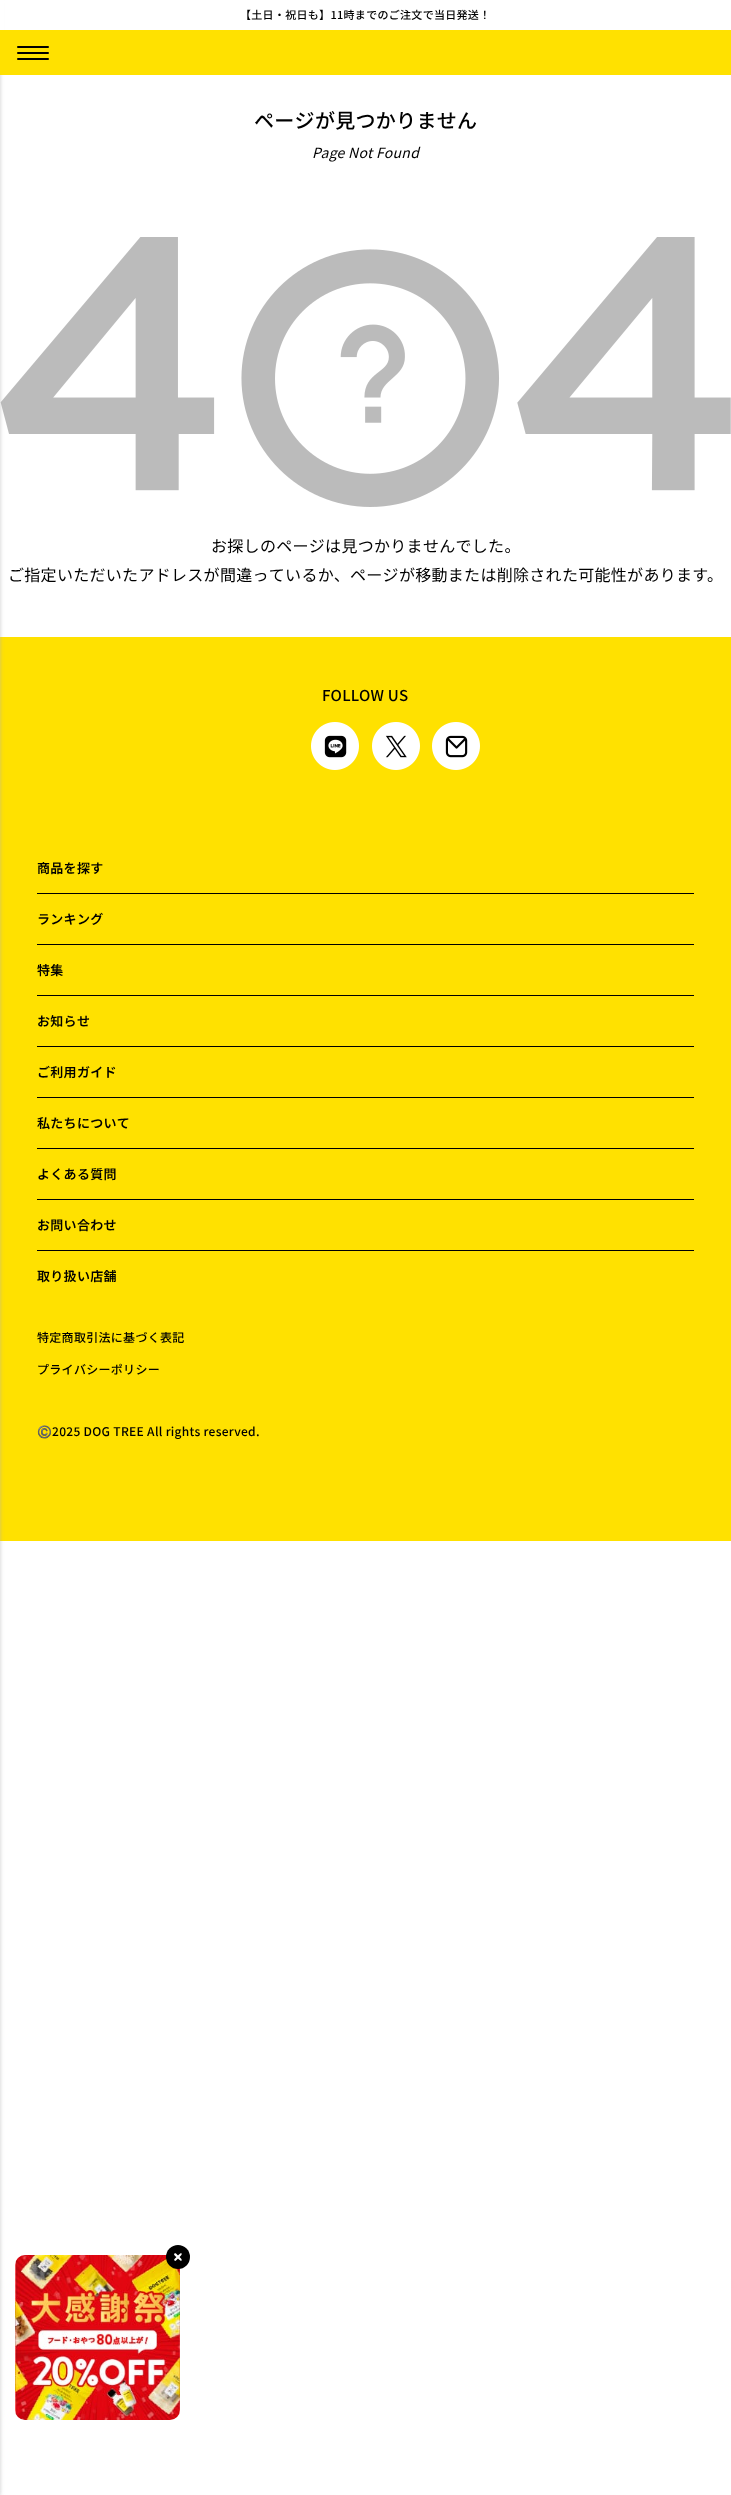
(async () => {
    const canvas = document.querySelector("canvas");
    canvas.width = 731;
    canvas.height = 2495;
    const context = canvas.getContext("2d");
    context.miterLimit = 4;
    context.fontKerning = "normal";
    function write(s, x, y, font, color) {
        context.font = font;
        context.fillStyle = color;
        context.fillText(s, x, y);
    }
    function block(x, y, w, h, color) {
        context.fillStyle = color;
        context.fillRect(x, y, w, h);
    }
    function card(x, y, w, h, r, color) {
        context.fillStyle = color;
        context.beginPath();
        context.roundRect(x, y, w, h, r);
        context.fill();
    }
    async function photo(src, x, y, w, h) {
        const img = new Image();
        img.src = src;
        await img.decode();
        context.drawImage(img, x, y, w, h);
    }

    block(0, 0, 731, 2495, "rgb(255, 255, 255)");
    await photo("media/1.png", 0, 237, 731, 270);
    block(0, 637, 731, 904, "rgb(255, 225, 0)");
    context.fillStyle = "rgb(178, 178, 178)";
    context.filter = "blur(2.5px)";
    context.beginPath();
    context.rect(-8, 1, 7, 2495);
    context.fill();
    context.filter = "none";
    block(0, 30, 731, 45, "rgb(255, 225, 0)");
    block(0, 0, 4, 30, "rgb(255, 255, 255)");
    context.letterSpacing = "0.3px";
    write("【土日・祝日も】11時までのご注文で当日発送！", 240, 19, "500 11px Noto Sans JP", "rgb(0, 0, 0)");
    card(17, 46, 32, 2, 1, "rgb(0, 0, 0)");
    card(17, 52, 32, 2, 1, "rgb(0, 0, 0)");
    card(17, 58, 32, 2, 1, "rgb(0, 0, 0)");
    write("ページが見つかりません", 254, 128, "500 20px Noto Sans JP", "rgb(0, 0, 0)");
    write("Page Not Found", 312, 158, "italic 14px Noto Sans JP", "rgb(0, 0, 0)");
    write("お探しのページは見つかりませんでした。", 211, 552, "16px Noto Sans JP", "rgb(0, 0, 0)");
    write("ご指定いただいたアドレスが間違っているか、ページが移動または削除された可能性があります。", 8, 581, "16px Noto Sans JP", "rgb(0, 0, 0)");
    write("FOLLOW US", 322, 701, "500 15px Noto Sans JP", "rgb(0, 0, 0)");
    await photo("media/2.png", 311, 722, 48, 48);
    await photo("media/3.png", 372, 722, 48, 48);
    await photo("media/4.png", 432, 722, 48, 48);
    block(37, 893, 657, 1, "rgb(0, 0, 0)");
    write("商品を探す", 37, 873, "600 13px Noto Sans JP", "rgb(0, 0, 0)");
    block(37, 944, 657, 1, "rgb(0, 0, 0)");
    write("ランキング", 37, 924, "600 13px Noto Sans JP", "rgb(0, 0, 0)");
    block(37, 995, 657, 1, "rgb(0, 0, 0)");
    write("特集", 37, 975, "600 13px Noto Sans JP", "rgb(0, 0, 0)");
    block(37, 1046, 657, 1, "rgb(0, 0, 0)");
    write("お知らせ", 37, 1026, "600 13px Noto Sans JP", "rgb(0, 0, 0)");
    block(37, 1097, 657, 1, "rgb(0, 0, 0)");
    write("ご利用ガイド", 37, 1077, "600 13px Noto Sans JP", "rgb(0, 0, 0)");
    block(37, 1148, 657, 1, "rgb(0, 0, 0)");
    write("私たちについて", 37, 1128, "600 13px Noto Sans JP", "rgb(0, 0, 0)");
    block(37, 1199, 657, 1, "rgb(0, 0, 0)");
    write("よくある質問", 37, 1179, "600 13px Noto Sans JP", "rgb(0, 0, 0)");
    block(37, 1250, 657, 1, "rgb(0, 0, 0)");
    write("お問い合わせ", 37, 1230, "600 13px Noto Sans JP", "rgb(0, 0, 0)");
    write("取り扱い店舗", 37, 1281, "600 13px Noto Sans JP", "rgb(0, 0, 0)");
    write("特定商取引法に基づく表記", 37, 1342, "500 12px Noto Sans JP", "rgb(0, 0, 0)");
    write("プライバシーポリシー", 37, 1374, "500 12px Noto Sans JP", "rgb(0, 0, 0)");
    write("©️", 37, 1436, "12px Noto Color Emoji", "rgb(0, 0, 0)");
    write("2025 DOG TREE All rights reserved.", 52, 1436, "500 12px Noto Sans JP", "rgb(0, 0, 0)");
    await photo("media/5.png", 15, 2255, 165, 165);
    context.beginPath();
    context.arc(178, 2257, 12, 0, Math.PI * 2);
    context.fill();
    context.fillStyle = "rgb(255, 255, 255)";
    context.beginPath();
    context.moveTo(174.5, 2259);
    context.lineTo(179, 2254.5);
    context.bezierCurveTo(181.5, 2252, 183, 2253.5, 180.5, 2256);
    context.lineTo(178, 2258.5);
    context.bezierCurveTo(177.5, 2259, 175.5, 2262, 174.5, 2260.5);
    context.bezierCurveTo(174, 2260, 174, 2259.5, 174.5, 2259);
    context.closePath();
    context.fill();
    context.beginPath();
    context.moveTo(176, 2253.5);
    context.lineTo(180.5, 2258);
    context.bezierCurveTo(183, 2260.5, 181.5, 2262, 179, 2259.5);
    context.lineTo(176.5, 2257);
    context.bezierCurveTo(176, 2256.5, 173, 2254.5, 174.5, 2253.5);
    context.bezierCurveTo(175, 2253, 175.5, 2253, 176, 2253.5);
    context.closePath();
    context.fill();
})();
